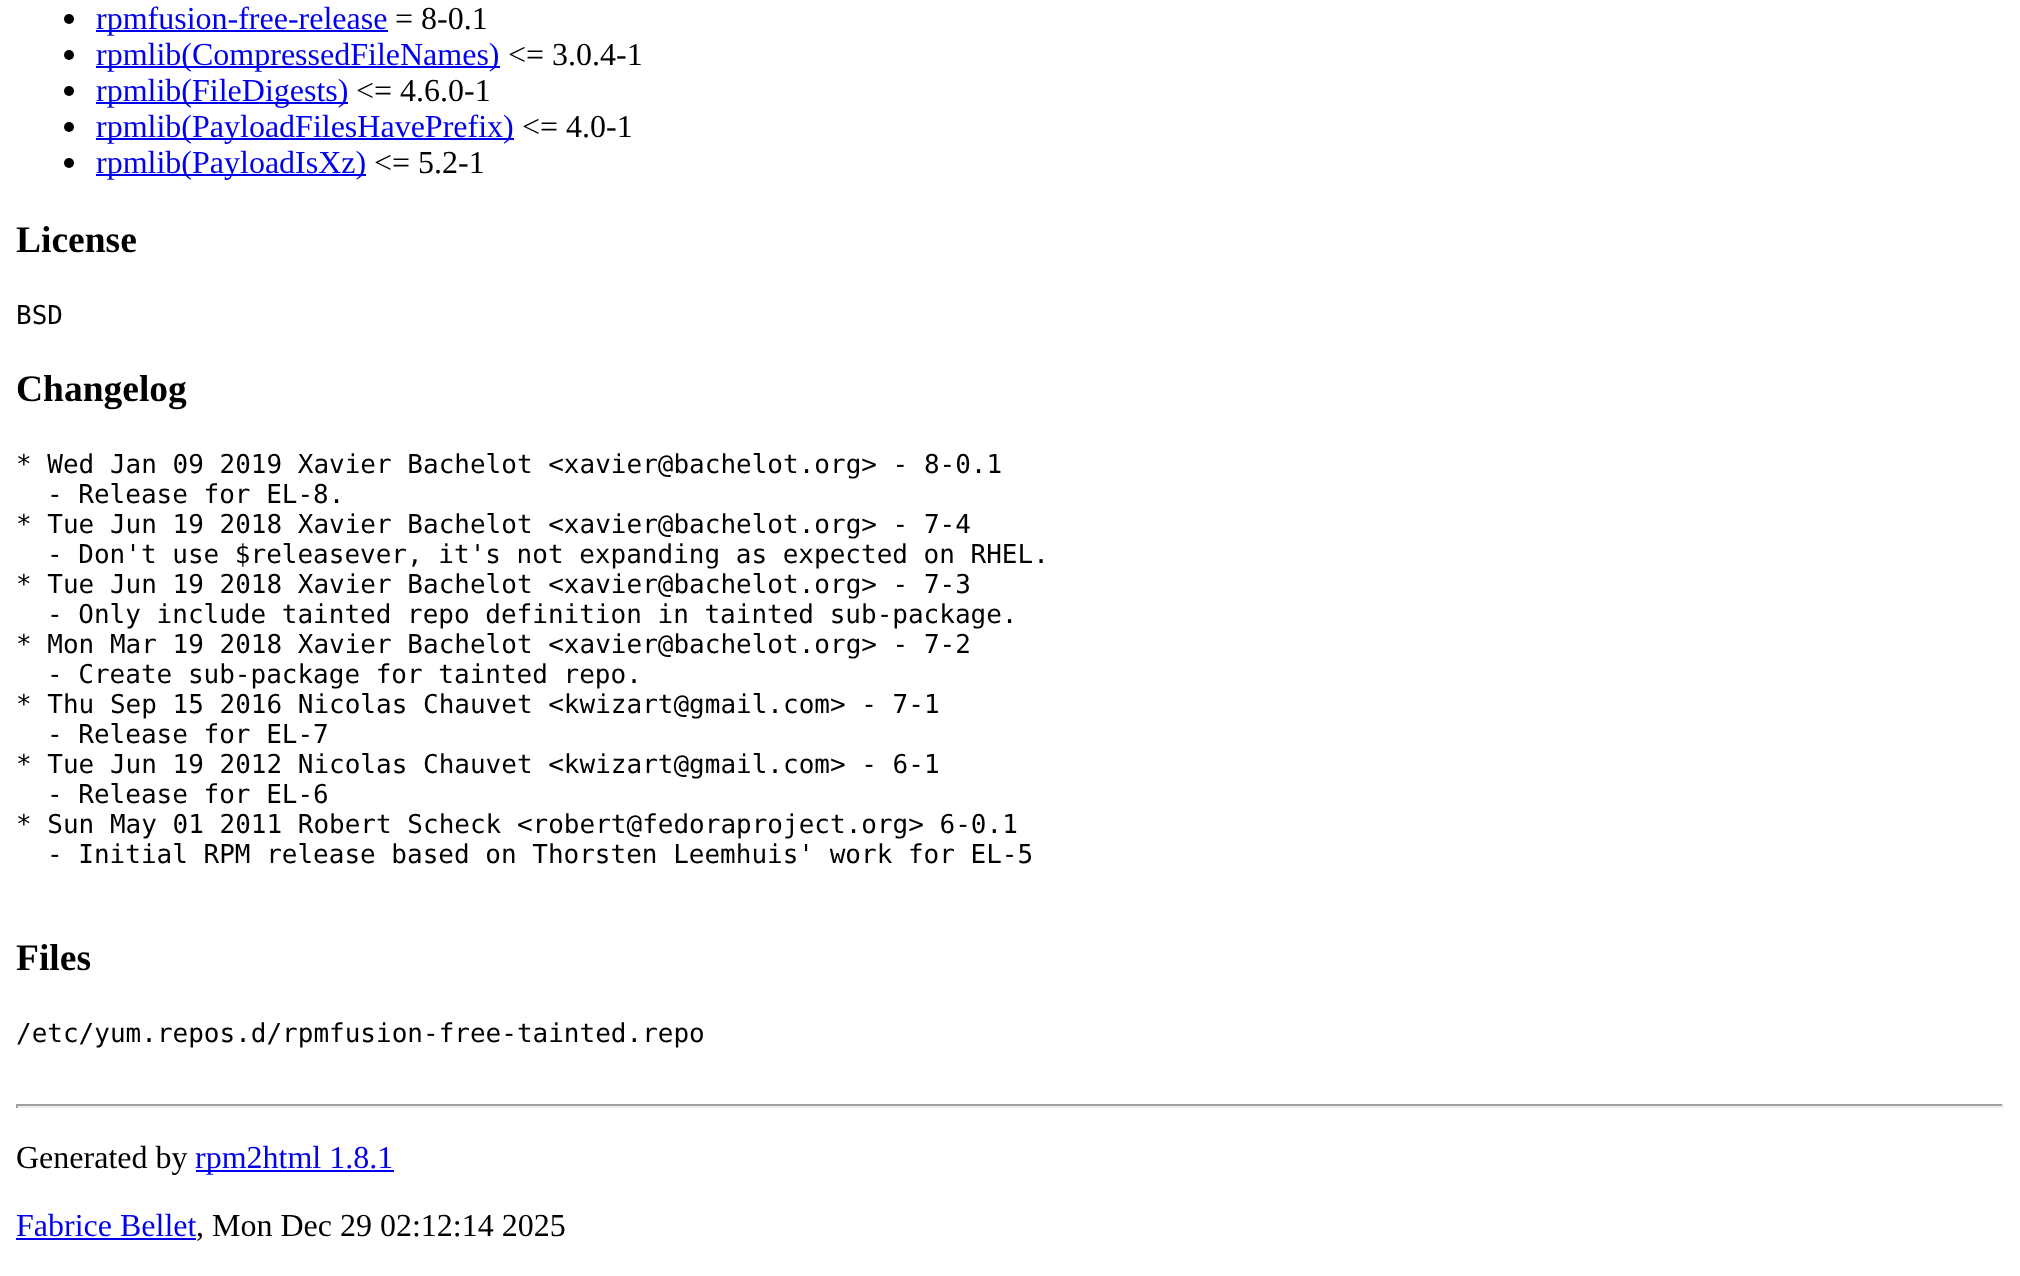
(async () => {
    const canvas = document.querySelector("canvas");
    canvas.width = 2020;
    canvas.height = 1276;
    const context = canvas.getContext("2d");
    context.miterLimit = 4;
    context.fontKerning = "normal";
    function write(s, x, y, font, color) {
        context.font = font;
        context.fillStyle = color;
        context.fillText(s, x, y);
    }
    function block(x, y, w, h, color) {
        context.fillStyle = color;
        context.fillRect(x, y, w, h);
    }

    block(0, 0, 2020, 1276, "rgb(255, 255, 255)");
    context.fillStyle = "rgb(0, 0, 0)";
    context.beginPath();
    context.arc(69, 19, 5, 0, Math.PI * 2);
    context.fill();
    block(96, 30, 292, 2, "rgb(0, 0, 238)");
    write("rpmfusion-free-release", 96, 29, "32px Liberation Serif", "rgb(0, 0, 238)");
    write("= 8-0.1", 395, 29, "32px Liberation Serif", "rgb(0, 0, 0)");
    context.beginPath();
    context.arc(69, 55, 5, 0, Math.PI * 2);
    context.fill();
    block(96, 66, 404, 2, "rgb(0, 0, 238)");
    write("rpmlib(CompressedFileNames)", 96, 65, "32px Liberation Serif", "rgb(0, 0, 238)");
    write("<= 3.0.4-1", 508, 65, "32px Liberation Serif", "rgb(0, 0, 0)");
    context.beginPath();
    context.arc(69, 91, 5, 0, Math.PI * 2);
    context.fill();
    block(96, 102, 252, 2, "rgb(0, 0, 238)");
    write("rpmlib(FileDigests)", 96, 101, "32px Liberation Serif", "rgb(0, 0, 238)");
    write("<= 4.6.0-1", 356, 101, "32px Liberation Serif", "rgb(0, 0, 0)");
    context.beginPath();
    context.arc(69, 127, 5, 0, Math.PI * 2);
    context.fill();
    block(96, 138, 418, 2, "rgb(0, 0, 238)");
    write("rpmlib(PayloadFilesHavePrefix)", 96, 137, "32px Liberation Serif", "rgb(0, 0, 238)");
    write("<= 4.0-1", 522, 137, "32px Liberation Serif", "rgb(0, 0, 0)");
    context.beginPath();
    context.arc(69, 163, 5, 0, Math.PI * 2);
    context.fill();
    block(96, 174, 270, 2, "rgb(0, 0, 238)");
    write("rpmlib(PayloadIsXz)", 96, 173, "32px Liberation Serif", "rgb(0, 0, 238)");
    write("<= 5.2-1", 374, 173, "32px Liberation Serif", "rgb(0, 0, 0)");
    write("License", 16, 252, "bold 37.5px Liberation Serif", "rgb(0, 0, 0)");
    write("BSD", 16, 324, "26px DejaVu Sans Mono", "rgb(0, 0, 0)");
    write("Changelog", 16, 401, "bold 37.5px Liberation Serif", "rgb(0, 0, 0)");
    write("* Wed Jan 09 2019 Xavier Bachelot <xavier@bachelot.org> - 8-0.1", 16, 473, "26px DejaVu Sans Mono", "rgb(0, 0, 0)");
    write("- Release for EL-8.", 47, 503, "26px DejaVu Sans Mono", "rgb(0, 0, 0)");
    write("* Tue Jun 19 2018 Xavier Bachelot <xavier@bachelot.org> - 7-4", 16, 533, "26px DejaVu Sans Mono", "rgb(0, 0, 0)");
    write("- Don't use $releasever, it's not expanding as expected on RHEL.", 47, 563, "26px DejaVu Sans Mono", "rgb(0, 0, 0)");
    write("* Tue Jun 19 2018 Xavier Bachelot <xavier@bachelot.org> - 7-3", 16, 593, "26px DejaVu Sans Mono", "rgb(0, 0, 0)");
    write("- Only include tainted repo definition in tainted sub-package.", 47, 623, "26px DejaVu Sans Mono", "rgb(0, 0, 0)");
    write("* Mon Mar 19 2018 Xavier Bachelot <xavier@bachelot.org> - 7-2", 16, 653, "26px DejaVu Sans Mono", "rgb(0, 0, 0)");
    write("- Create sub-package for tainted repo.", 47, 683, "26px DejaVu Sans Mono", "rgb(0, 0, 0)");
    write("* Thu Sep 15 2016 Nicolas Chauvet <kwizart@gmail.com> - 7-1", 16, 713, "26px DejaVu Sans Mono", "rgb(0, 0, 0)");
    write("- Release for EL-7", 47, 743, "26px DejaVu Sans Mono", "rgb(0, 0, 0)");
    write("* Tue Jun 19 2012 Nicolas Chauvet <kwizart@gmail.com> - 6-1", 16, 773, "26px DejaVu Sans Mono", "rgb(0, 0, 0)");
    write("- Release for EL-6", 47, 803, "26px DejaVu Sans Mono", "rgb(0, 0, 0)");
    write("* Sun May 01 2011 Robert Scheck <robert@fedoraproject.org> 6-0.1", 16, 833, "26px DejaVu Sans Mono", "rgb(0, 0, 0)");
    write("- Initial RPM release based on Thorsten Leemhuis' work for EL-5", 47, 863, "26px DejaVu Sans Mono", "rgb(0, 0, 0)");
    write("Files", 16, 970, "bold 37.5px Liberation Serif", "rgb(0, 0, 0)");
    write("/etc/yum.repos.d/rpmfusion-free-tainted.repo", 16, 1042, "26px DejaVu Sans Mono", "rgb(0, 0, 0)");
    block(16, 1104, 1988, 2, "rgb(159, 159, 159)");
    block(2002, 1104, 2, 4, "rgb(238, 238, 238)");
    block(16, 1106, 1988, 2, "rgb(238, 238, 238)");
    block(16, 1104, 2, 4, "rgb(159, 159, 159)");
    write("Generated by", 16, 1168, "32px Liberation Serif", "rgb(0, 0, 0)");
    block(196, 1170, 198, 2, "rgb(0, 0, 238)");
    write("rpm2html 1.8.1", 195, 1168, "32px Liberation Serif", "rgb(0, 0, 238)");
    write("Fabrice Bellet", 16, 1236, "32px Liberation Serif", "rgb(0, 0, 238)");
    block(16, 1238, 180, 2, "rgb(0, 0, 238)");
    write(", Mon Dec 29 02:12:14 2025", 196, 1236, "32px Liberation Serif", "rgb(0, 0, 0)");
})();
